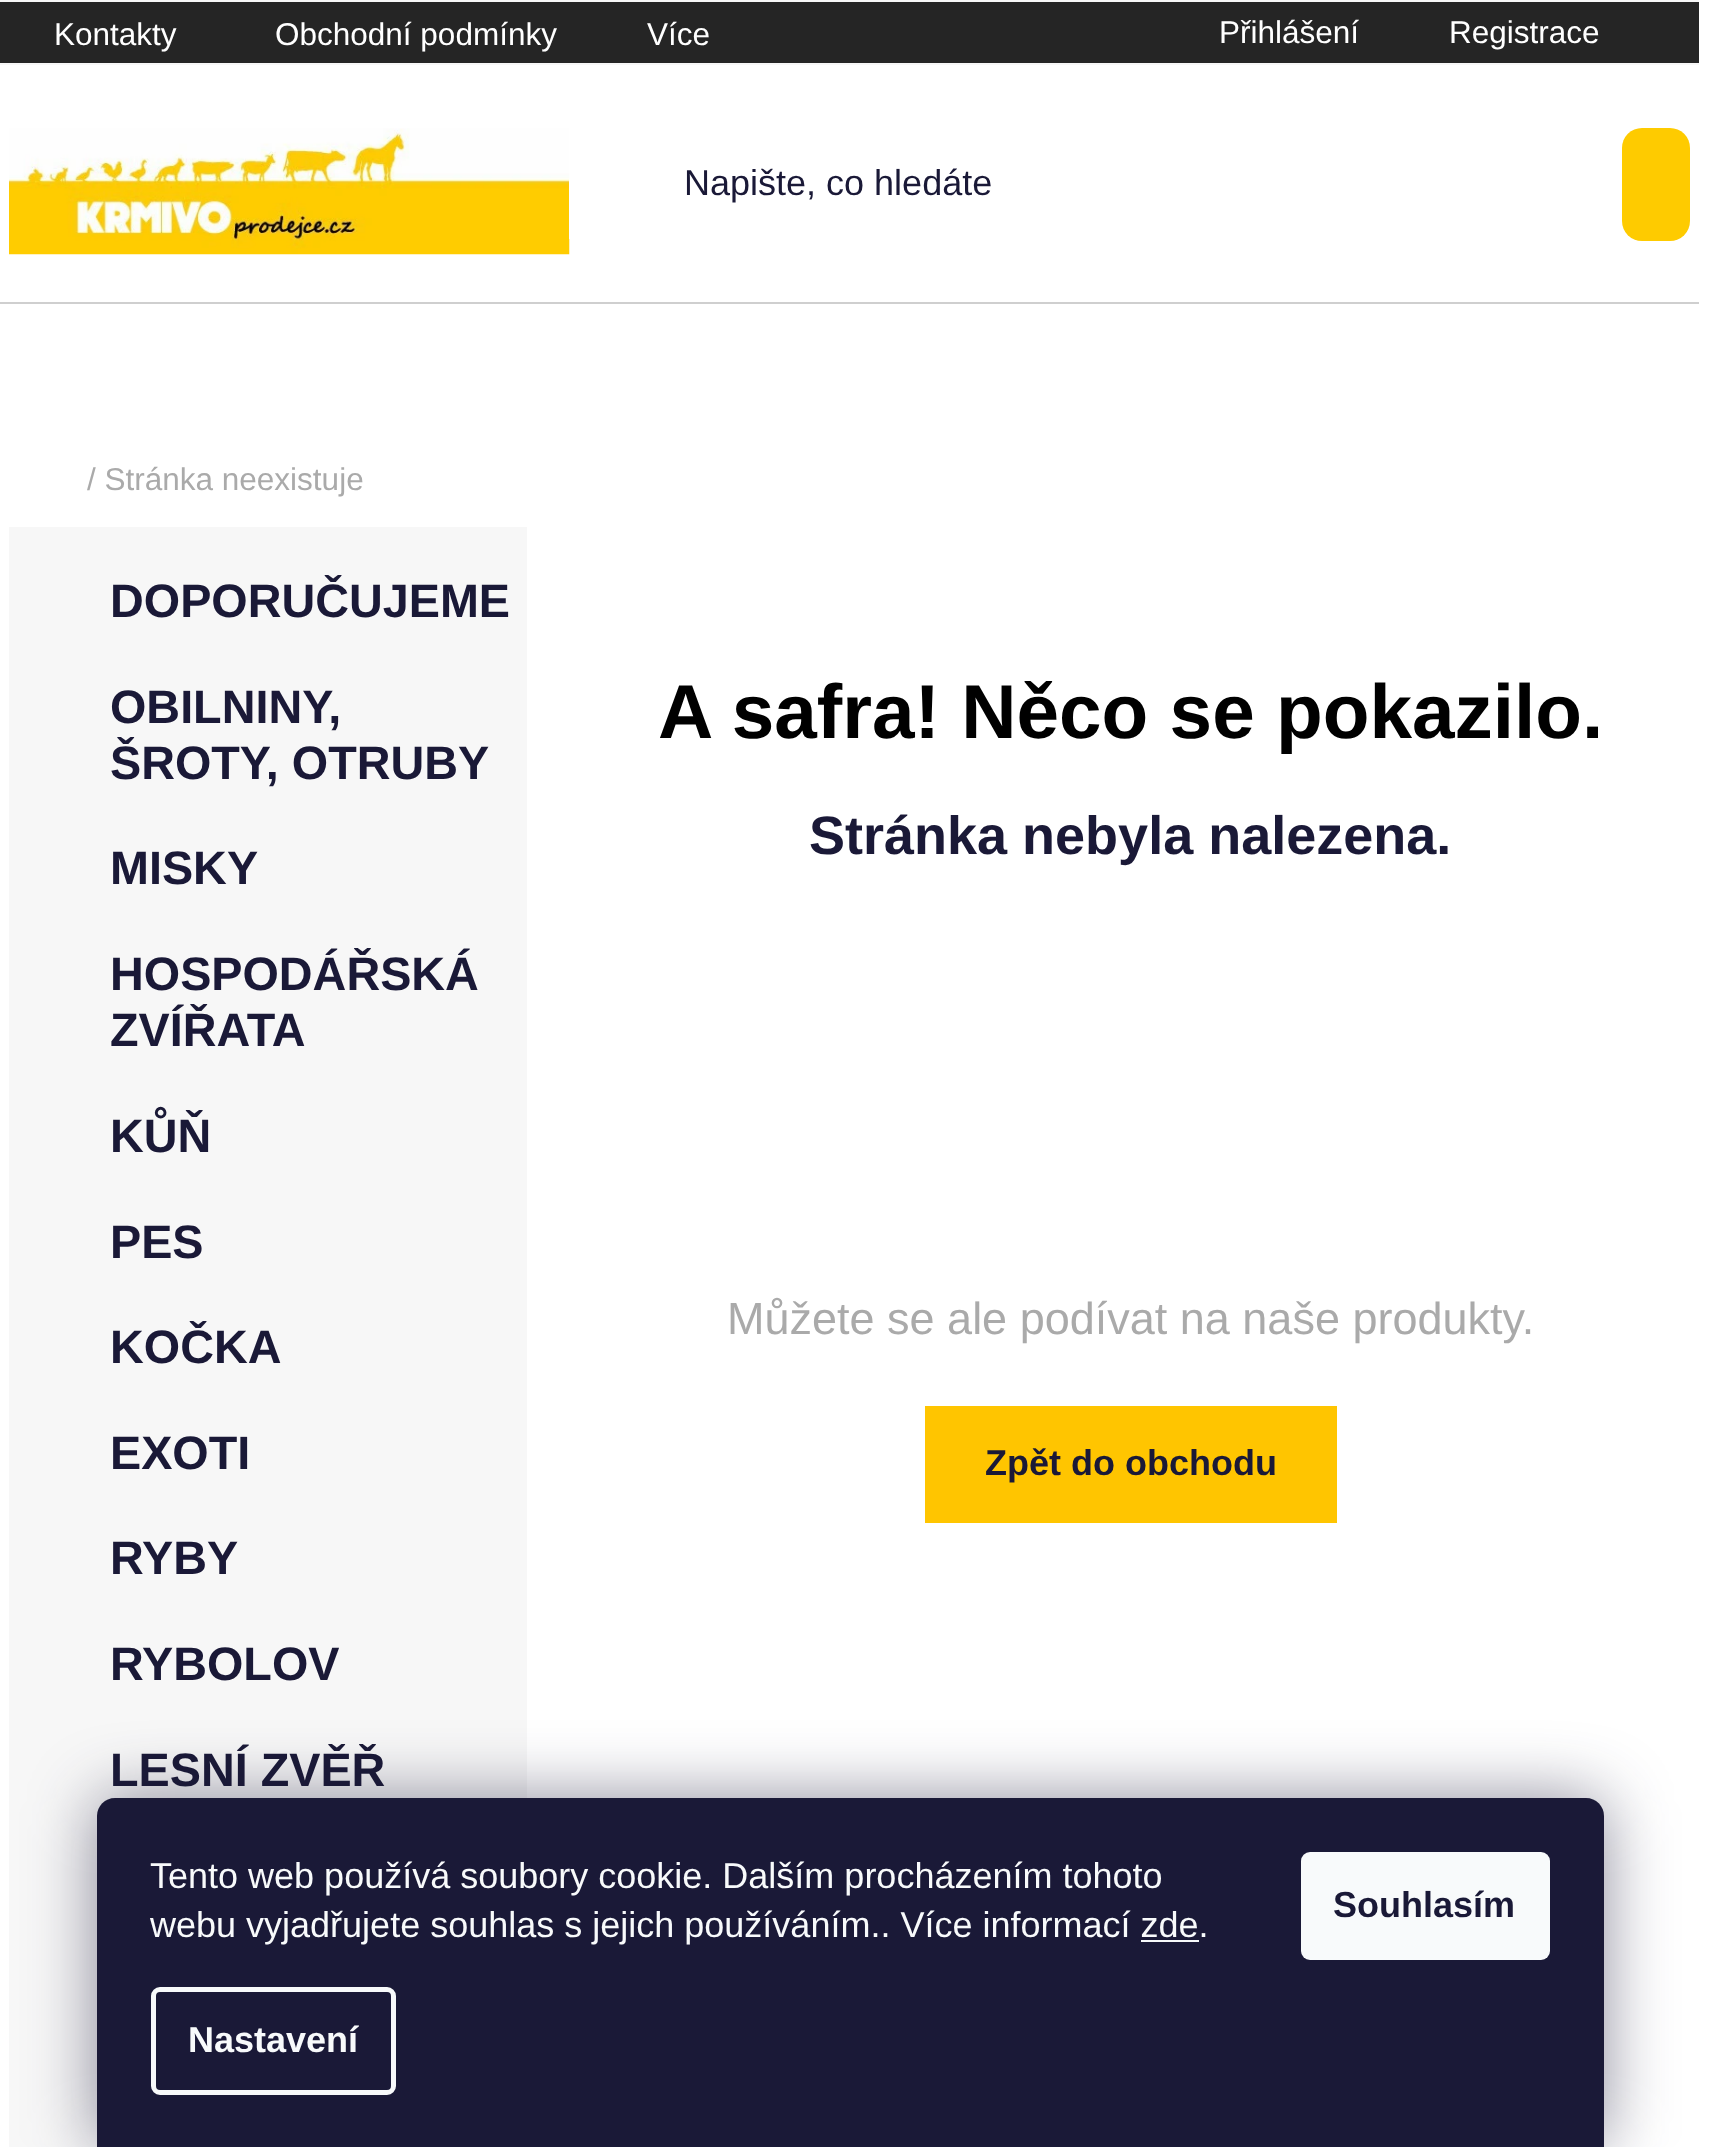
(async () => {
    const canvas = document.querySelector("canvas");
    canvas.width = 1732;
    canvas.height = 2147;
    const context = canvas.getContext("2d");
    context.miterLimit = 4;
    context.fontKerning = "normal";
    function write(s, x, y, font, color) {
        context.font = font;
        context.fillStyle = color;
        context.fillText(s, x, y);
    }
    function block(x, y, w, h, color) {
        context.fillStyle = color;
        context.fillRect(x, y, w, h);
    }
    function card(x, y, w, h, r, color) {
        context.fillStyle = color;
        context.beginPath();
        context.roundRect(x, y, w, h, r);
        context.fill();
    }
    async function photo(src, x, y, w, h) {
        const img = new Image();
        img.src = src;
        await img.decode();
        context.drawImage(img, x, y, w, h);
    }

    block(0, 0, 1732, 2147, "rgb(255, 255, 255)");
    block(0, 2, 1699, 61, "rgb(37, 37, 37)");
    block(0, 0, 1699, 2, "rgb(247, 247, 247)");
    block(0, 63, 1699, 2, "rgb(247, 247, 247)");
    write("Kontakty", 54, 45, "31.5px Liberation Sans", "rgb(255, 255, 255)");
    write("Obchodní podmínky", 275, 45, "31.5px Liberation Sans", "rgb(255, 255, 255)");
    write("Více", 647, 45, "31.5px Liberation Sans", "rgb(255, 255, 255)");
    write("Přihlášení", 1219, 43, "31.5px Liberation Sans", "rgb(255, 255, 255)");
    write("Registrace", 1449, 43, "31.5px Liberation Sans", "rgb(255, 255, 255)");
    await photo("media/1.png", 9, 128, 561, 127);
    block(569, 179, 1, 60, "rgb(255, 255, 255)");
    write("Napište, co hledáte", 684, 195, "36px Liberation Sans", "rgb(26, 25, 55)");
    card(1622, 128, 68, 113, 20, "rgb(254, 203, 0)");
    block(0, 302, 1699, 2, "rgb(207, 207, 207)");
    write("/ Stránka neexistuje", 87, 490, "31.5px Liberation Sans", "rgb(170, 170, 170)");
    block(9, 527, 518, 1620, "rgb(247, 247, 247)");
    write("DOPORUČUJEME", 110, 617, "bold 46.75px Liberation Sans", "rgb(26, 25, 55)");
    write("OBILNINY,", 110, 723, "bold 46.75px Liberation Sans", "rgb(26, 25, 55)");
    write("ŠROTY, OTRUBY", 110, 779, "bold 46.75px Liberation Sans", "rgb(26, 25, 55)");
    write("MISKY", 110, 884, "bold 46.75px Liberation Sans", "rgb(26, 25, 55)");
    write("HOSPODÁŘSKÁ", 110, 990, "bold 46.75px Liberation Sans", "rgb(26, 25, 55)");
    write("ZVÍŘATA", 110, 1046, "bold 46.75px Liberation Sans", "rgb(26, 25, 55)");
    write("KŮŇ", 110, 1152, "bold 46.75px Liberation Sans", "rgb(26, 25, 55)");
    write("PES", 110, 1258, "bold 46.75px Liberation Sans", "rgb(26, 25, 55)");
    write("KOČKA", 110, 1363, "bold 46.75px Liberation Sans", "rgb(26, 25, 55)");
    write("EXOTI", 110, 1469, "bold 46.75px Liberation Sans", "rgb(26, 25, 55)");
    write("RYBY", 110, 1574, "bold 46.75px Liberation Sans", "rgb(26, 25, 55)");
    write("RYBOLOV", 110, 1680, "bold 46.75px Liberation Sans", "rgb(26, 25, 55)");
    write("LESNÍ ZVĚŘ", 110, 1786, "bold 46.75px Liberation Sans", "rgb(26, 25, 55)");
    write("A safra! Něco se pokazilo.", 658, 738, "bold 76.5px Liberation Sans", "rgb(0, 0, 0)");
    write("Stránka nebyla nalezena.", 809, 854, "bold 54px Liberation Sans", "rgb(26, 25, 55)");
    write("Můžete se ale podívat na naše produkty.", 727, 1334, "45px Liberation Sans", "rgb(170, 170, 170)");
    block(925, 1406, 412, 117, "rgb(255, 197, 0)");
    write("Zpět do obchodu", 985, 1475, "bold 36px Liberation Sans", "rgb(26, 25, 55)");
    context.fillStyle = "rgba(27, 25, 57, 0.5)";
    context.filter = "blur(34px)";
    context.beginPath();
    context.roundRect(97, 1798, 1507, 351, 18);
    context.fill();
    context.filter = "none";
    context.fillStyle = "rgb(26, 25, 55)";
    context.beginPath();
    context.moveTo(115, 1798);
    context.lineTo(1586, 1798);
    context.bezierCurveTo(1596, 1798, 1604, 1806, 1604, 1816);
    context.lineTo(1604, 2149);
    context.lineTo(97, 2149);
    context.lineTo(97, 1816);
    context.bezierCurveTo(97, 1806, 105, 1798, 115, 1798);
    context.closePath();
    context.fill();
    write("Tento web používá soubory cookie. Dalším procházením tohoto", 150, 1888, "36px Liberation Sans", "rgb(248, 250, 251)");
    write("webu vyjadřujete souhlas s jejich používáním.. Více informací zde.", 150, 1937, "36px Liberation Sans", "rgb(248, 250, 251)");
    block(1141, 1940, 58, 2, "rgb(248, 250, 251)");
    context.beginPath();
    context.roundRect(153.5, 1989.5, 240, 103, 6.5);
    context.strokeStyle = "rgb(248, 250, 251)";
    context.lineWidth = 5;
    context.stroke();
    write("Nastavení", 188, 2052, "bold 36px Liberation Sans", "rgb(248, 250, 251)");
    card(1301, 1852, 249, 108, 9, "rgb(248, 250, 251)");
    write("Souhlasím", 1333, 1917, "bold 36px Liberation Sans", "rgb(26, 25, 55)");
})();
